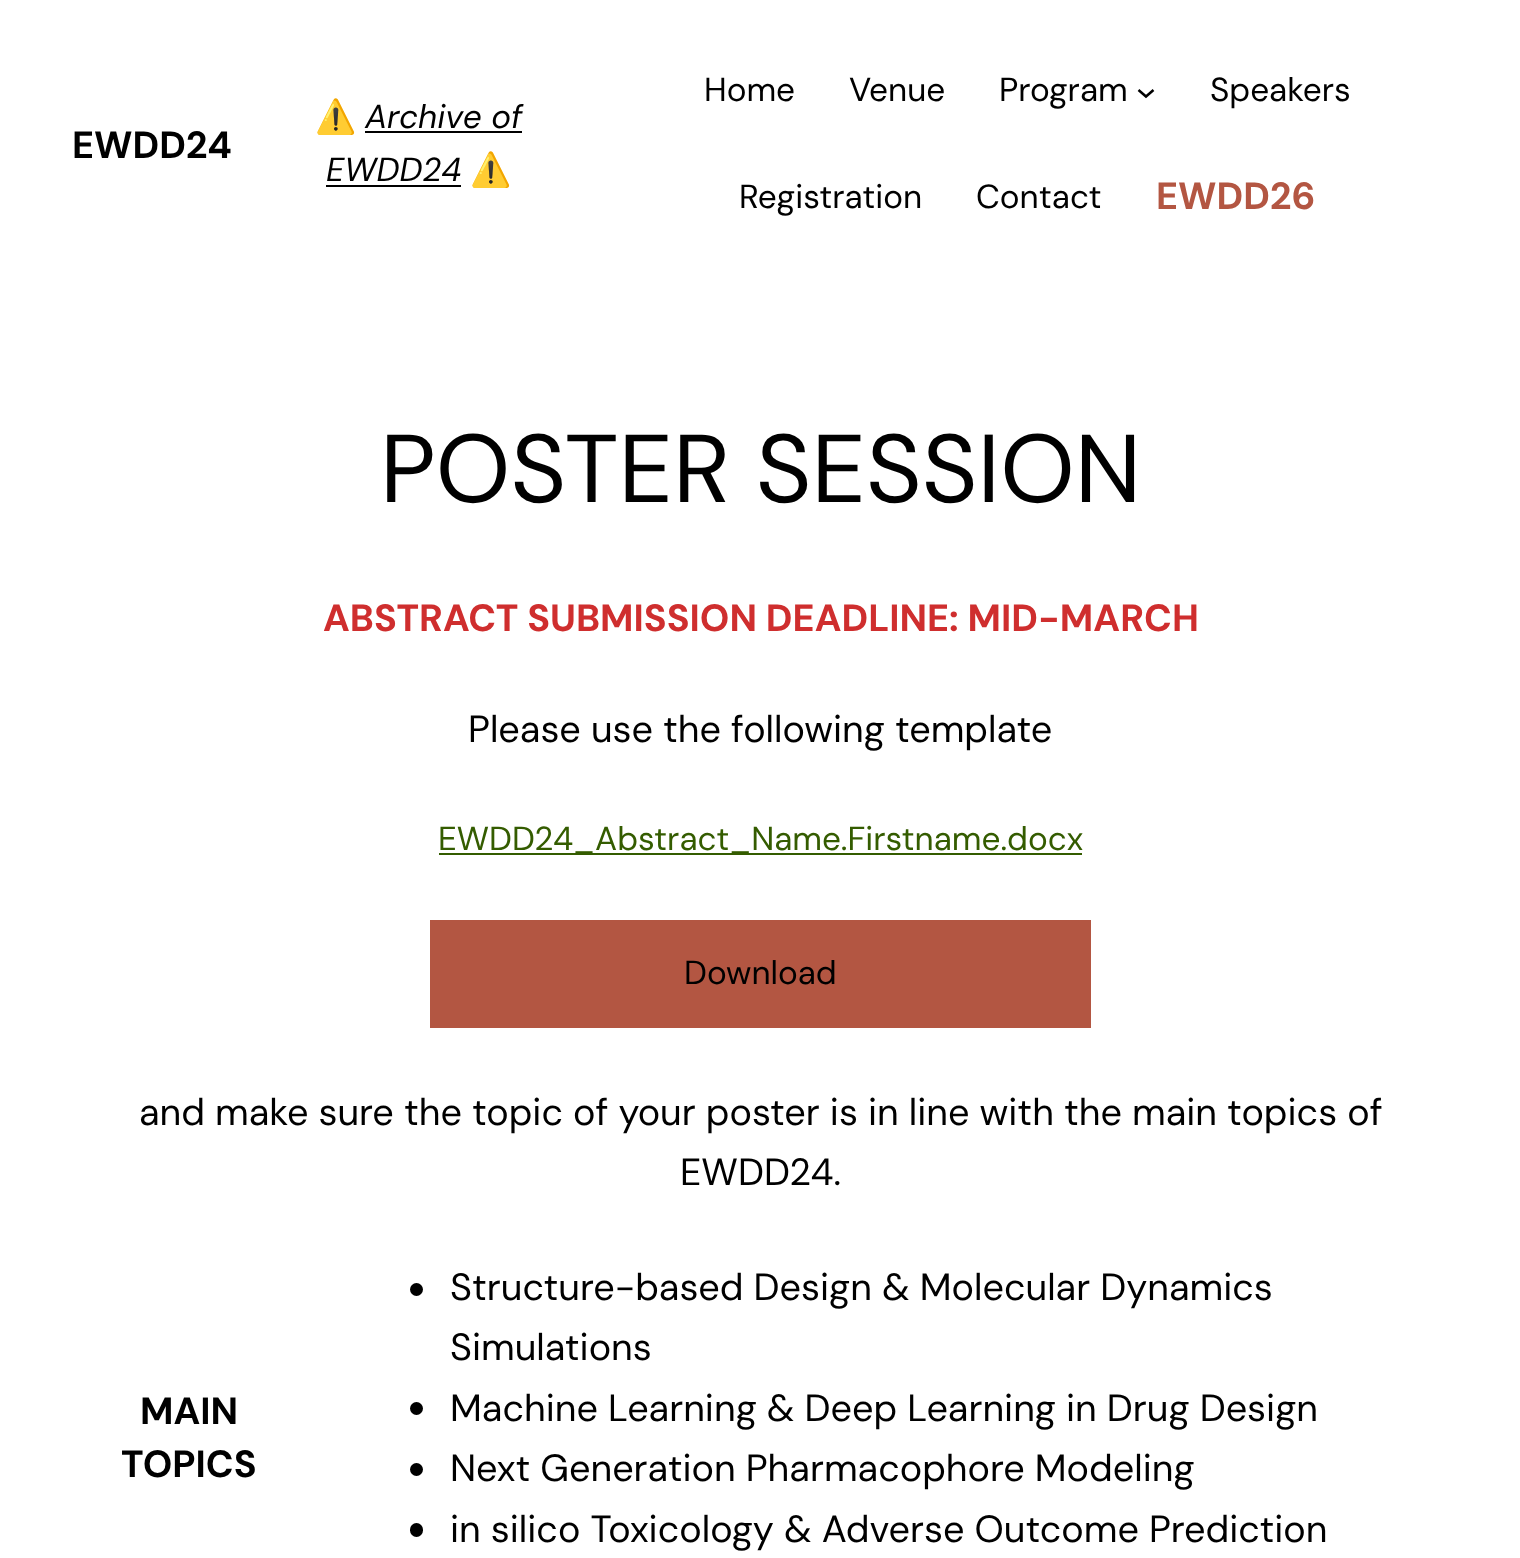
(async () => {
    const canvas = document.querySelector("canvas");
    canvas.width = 1520;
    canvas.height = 1558;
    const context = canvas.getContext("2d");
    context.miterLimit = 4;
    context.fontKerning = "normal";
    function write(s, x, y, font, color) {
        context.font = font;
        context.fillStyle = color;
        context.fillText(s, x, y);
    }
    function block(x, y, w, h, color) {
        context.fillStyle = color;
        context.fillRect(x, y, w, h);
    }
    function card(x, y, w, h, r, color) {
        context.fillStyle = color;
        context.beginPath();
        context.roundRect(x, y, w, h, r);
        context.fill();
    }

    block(0, 0, 1520, 1558, "rgb(255, 255, 255)");
    write("EWDD24", 72, 158, "bold 37.8px DM Sans", "rgb(0, 0, 0)");
    write("⚠️", 315, 128, "33.3px Noto Color Emoji", "rgb(0, 0, 0)");
    write("Archive of", 365, 128, "italic 33.3px DM Sans", "rgb(0, 0, 0)");
    block(365, 131, 157, 2, "rgb(0, 0, 0)");
    write("EWDD24", 326, 181, "italic 33.3px DM Sans", "rgb(0, 0, 0)");
    block(326, 185, 135, 2, "rgb(0, 0, 0)");
    write("⚠️", 470, 181, "33.3px Noto Color Emoji", "rgb(0, 0, 0)");
    write("Home", 704, 101, "33.3px DM Sans", "rgb(0, 0, 0)");
    write("Venue", 849, 101, "33.3px DM Sans", "rgb(0, 0, 0)");
    write("Program", 999, 101, "33.3px DM Sans", "rgb(0, 0, 0)");
    context.beginPath();
    context.moveTo(1138.5, 90);
    context.lineTo(1146, 96.5);
    context.lineTo(1153.5, 90);
    context.strokeStyle = "rgb(0, 0, 0)";
    context.lineWidth = 2.5;
    context.stroke();
    write("Speakers", 1210, 101, "33.3px DM Sans", "rgb(0, 0, 0)");
    write("Registration", 739, 208, "33.3px DM Sans", "rgb(0, 0, 0)");
    write("Contact", 976, 208, "33.3px DM Sans", "rgb(0, 0, 0)");
    write("EWDD26", 1156, 209, "bold 37.8px DM Sans", "rgb(179, 86, 66)");
    write("POSTER SESSION", 380, 502, "96.25px DM Sans", "rgb(0, 0, 0)");
    write("ABSTRACT SUBMISSION DEADLINE: MID-MARCH", 323, 631, "bold 37.8px DM Sans", "rgb(207, 46, 46)");
    write("Please use the following template", 468, 742, "37.8px DM Sans", "rgb(0, 0, 0)");
    block(439, 853, 643, 2, "rgb(52, 92, 0)");
    write("EWDD24_Abstract_Name.Firstname.docx", 438, 850, "33.3px DM Sans", "rgb(52, 92, 0)");
    block(430, 920, 661, 108, "rgb(179, 86, 66)");
    write("Download", 684, 984, "33.3px DM Sans", "rgb(0, 0, 0)");
    write("and make sure the topic of your poster is in line with the main topics of", 139, 1125, "37.8px DM Sans", "rgb(0, 0, 0)");
    write("EWDD24.", 680, 1185, "37.8px DM Sans", "rgb(0, 0, 0)");
    write("MAIN", 140, 1424, "bold 37.8px DM Sans", "rgb(0, 0, 0)");
    write("TOPICS", 121, 1477, "bold 37.8px DM Sans", "rgb(0, 0, 0)");
    context.beginPath();
    context.arc(416.5, 1289.5, 6.5, 0, Math.PI * 2);
    context.fill();
    write("Structure-based Design & Molecular Dynamics", 450, 1300, "37.8px DM Sans", "rgb(0, 0, 0)");
    write("Simulations", 450, 1360, "37.8px DM Sans", "rgb(0, 0, 0)");
    context.beginPath();
    context.arc(416.5, 1408.5, 6.5, 0, Math.PI * 2);
    context.fill();
    write("Machine Learning & Deep Learning in Drug Design", 450, 1421, "37.8px DM Sans", "rgb(0, 0, 0)");
    context.beginPath();
    context.arc(416.5, 1469.5, 6.5, 0, Math.PI * 2);
    context.fill();
    write("Next Generation Pharmacophore Modeling", 450, 1481, "37.8px DM Sans", "rgb(0, 0, 0)");
    card(410, 1523, 13, 14, 6.5, "rgb(0, 0, 0)");
    write("in silico Toxicology & Adverse Outcome Prediction", 450, 1542, "37.8px DM Sans", "rgb(0, 0, 0)");
})();
